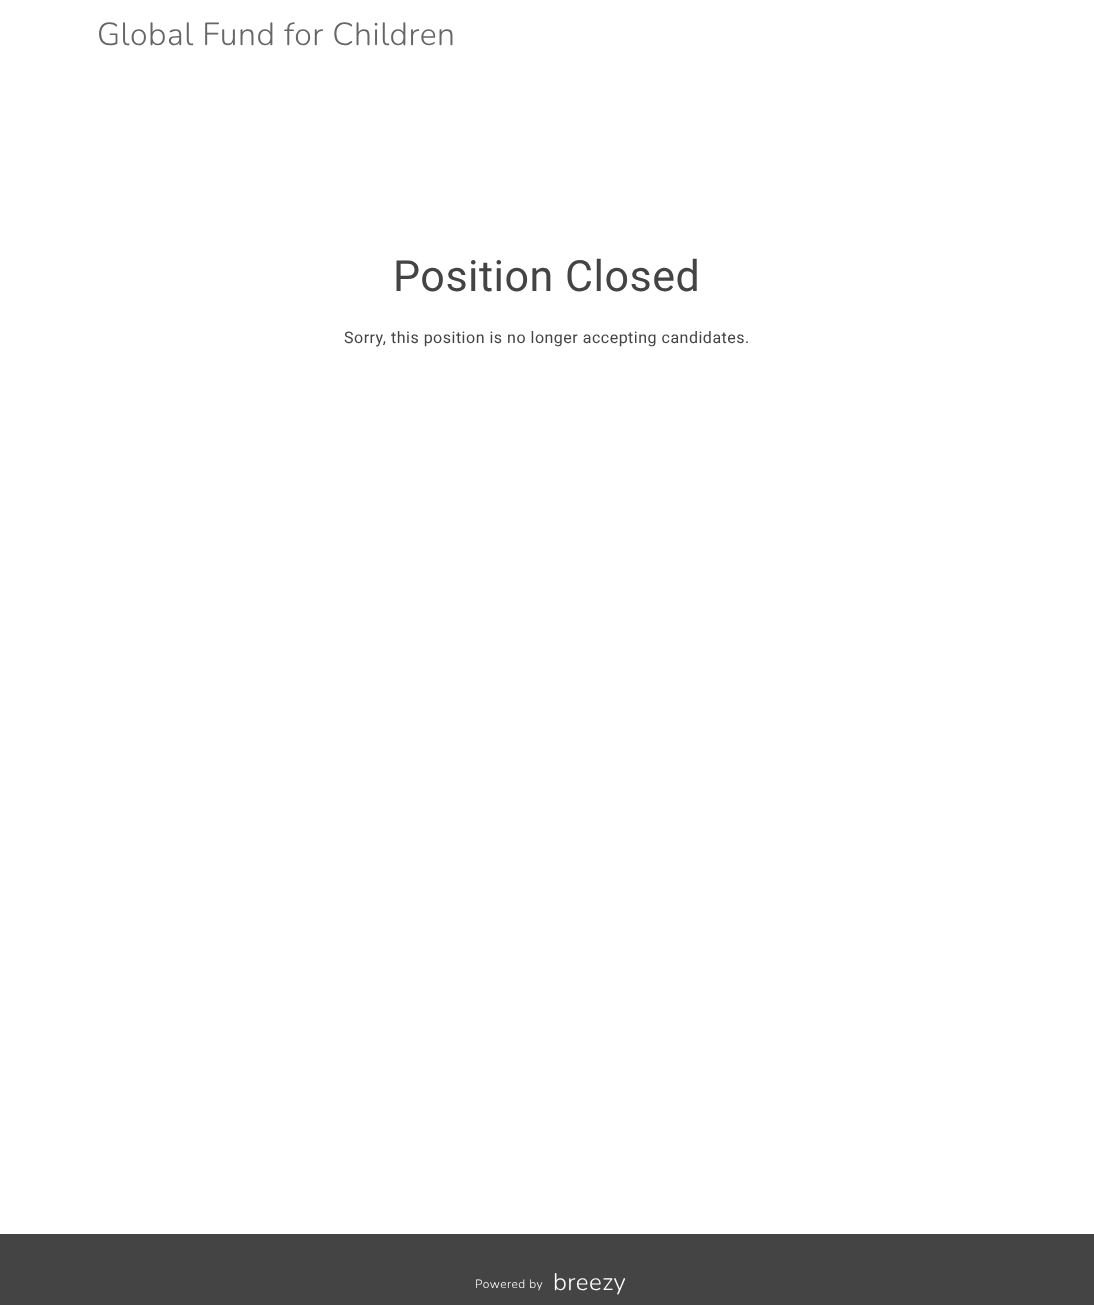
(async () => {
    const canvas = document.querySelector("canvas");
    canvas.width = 1094;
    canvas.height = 1305;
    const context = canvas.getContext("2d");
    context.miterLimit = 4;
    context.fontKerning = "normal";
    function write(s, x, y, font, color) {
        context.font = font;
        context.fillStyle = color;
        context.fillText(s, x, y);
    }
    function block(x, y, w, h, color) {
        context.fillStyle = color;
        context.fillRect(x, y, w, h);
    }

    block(0, 0, 1094, 1305, "rgb(255, 255, 255)");
    context.letterSpacing = "0.5px";
    write("Global Fund for Children", 97, 45, "300 32px Nunito", "rgb(102, 102, 102)");
    write("Position Closed", 393, 291, "43px Roboto", "rgb(68, 68, 68)");
    write("Sorry, this position is no longer accepting candidates.", 344, 343, "16px Roboto", "rgb(68, 68, 68)");
    block(0, 1234, 1094, 71, "rgb(68, 68, 68)");
    write("Powered by", 475, 1288, "300 12px Nunito", "rgb(255, 255, 255)");
    write("breezy", 553, 1290, "300 24px Nunito", "rgb(255, 255, 255)");
})();
